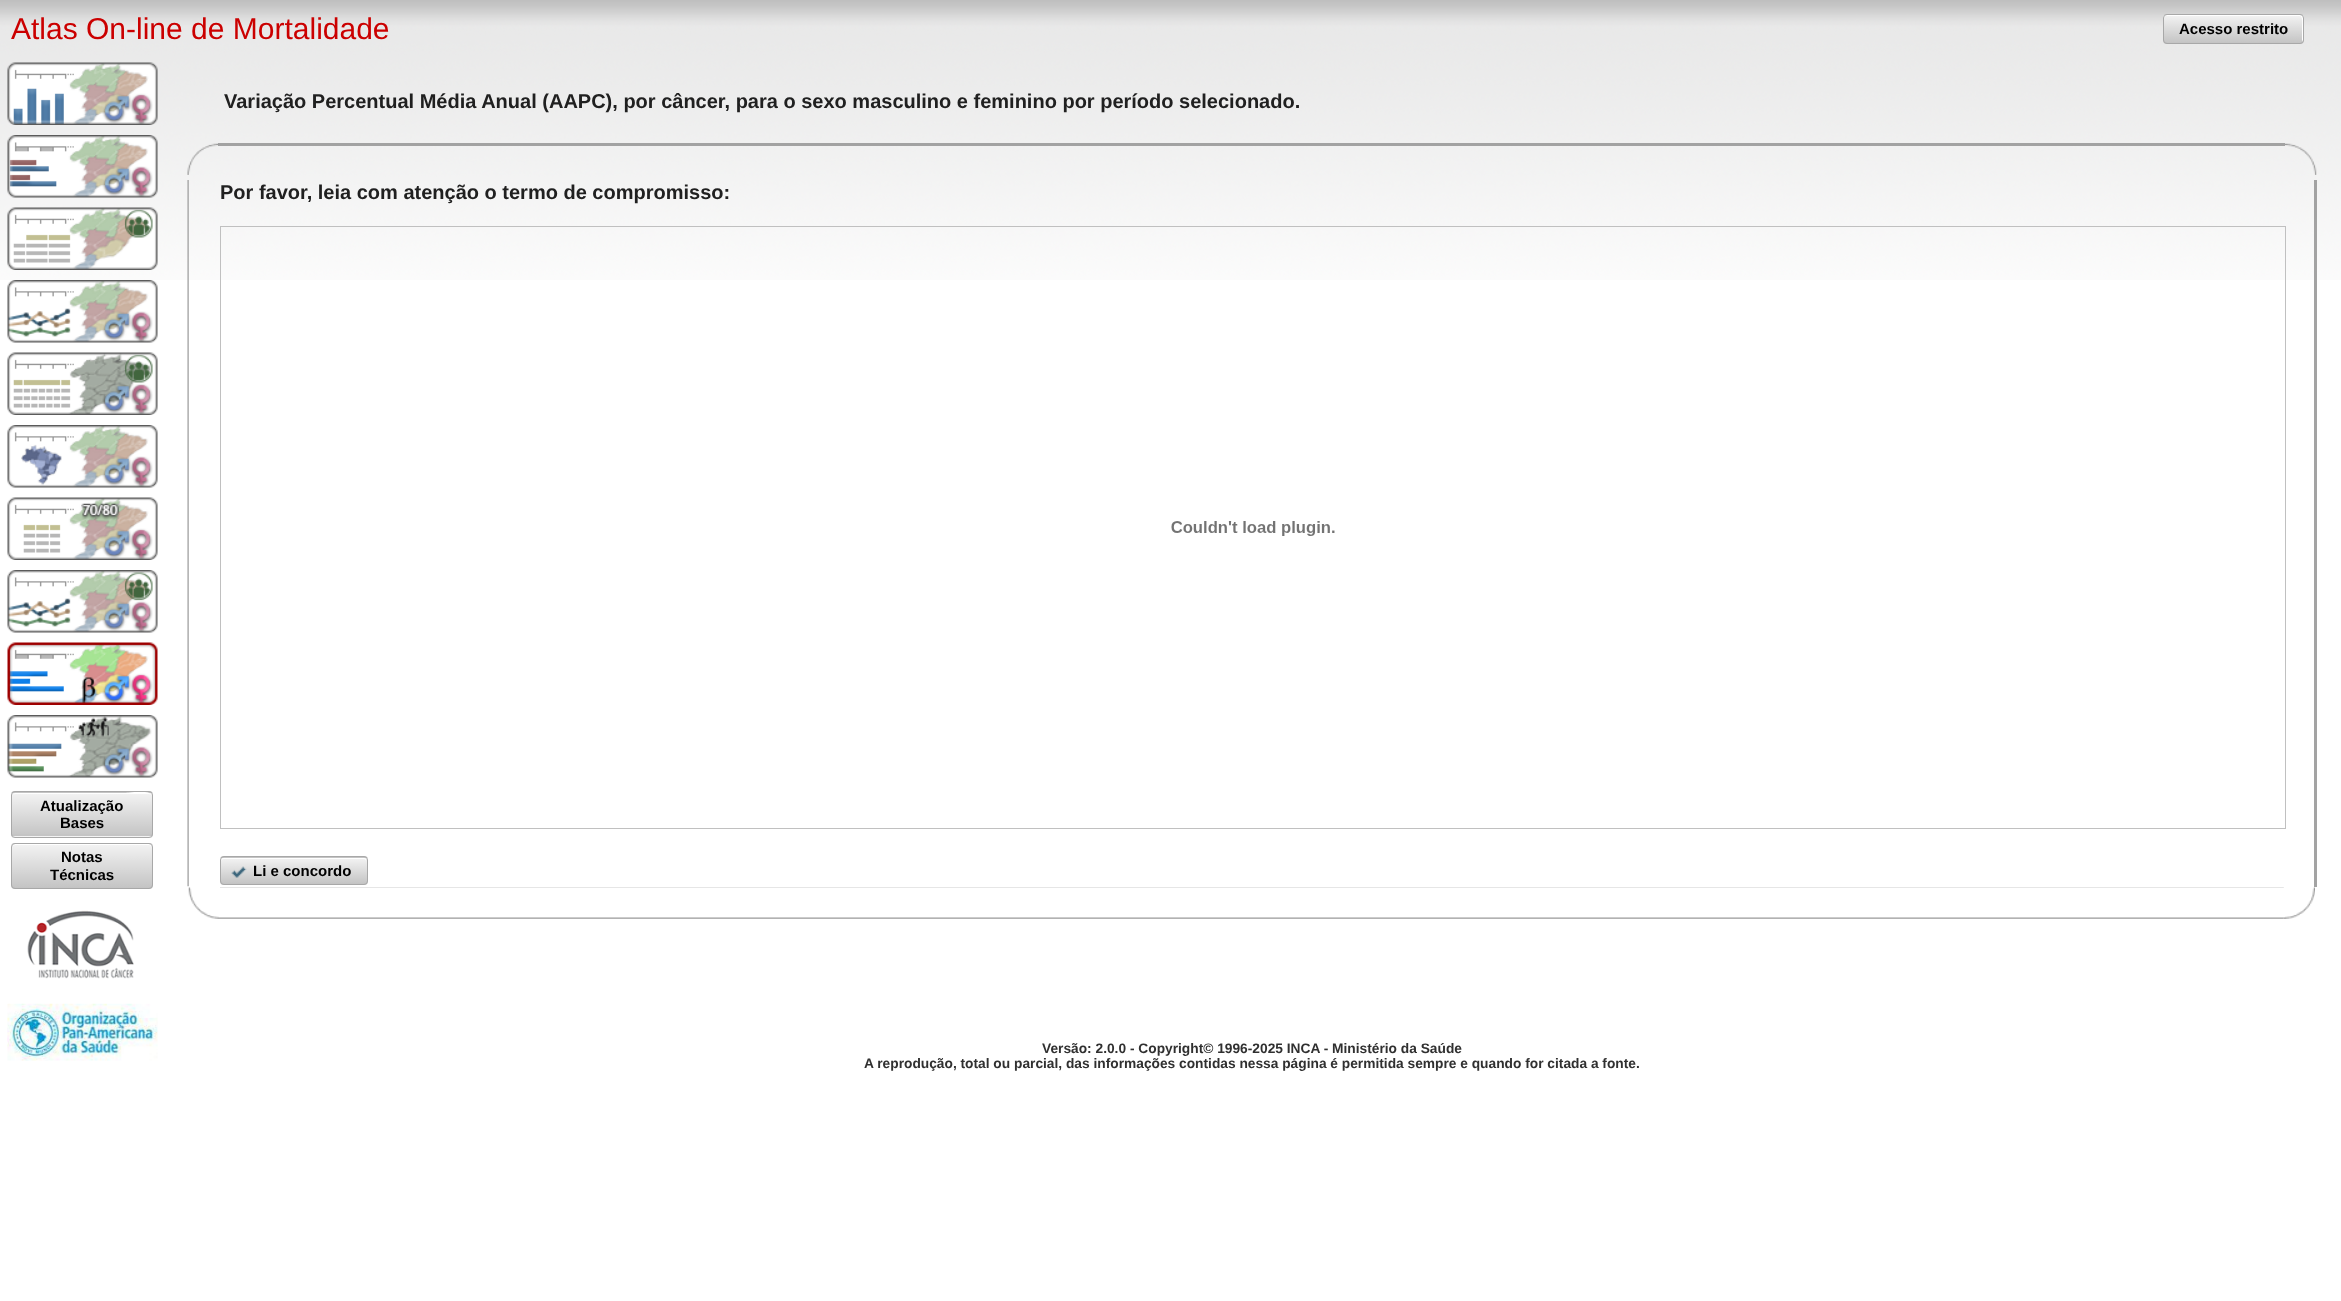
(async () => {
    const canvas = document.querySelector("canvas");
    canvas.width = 2341;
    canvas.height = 1301;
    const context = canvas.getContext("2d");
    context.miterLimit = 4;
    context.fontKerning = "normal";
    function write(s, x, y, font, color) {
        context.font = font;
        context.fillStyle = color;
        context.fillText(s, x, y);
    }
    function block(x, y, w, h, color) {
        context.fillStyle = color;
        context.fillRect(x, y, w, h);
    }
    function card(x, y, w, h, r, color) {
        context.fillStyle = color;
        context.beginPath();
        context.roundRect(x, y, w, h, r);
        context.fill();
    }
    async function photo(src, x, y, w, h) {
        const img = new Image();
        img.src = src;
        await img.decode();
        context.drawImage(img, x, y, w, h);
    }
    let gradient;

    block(0, 0, 2341, 1301, "rgb(255, 255, 255)");
    await photo("media/1.png", 0, 0, 2341, 280);
    write("Atlas On-line de Mortalidade", 11, 39, "30px Liberation Sans", "rgb(203, 0, 0)");
    card(2163, 14, 141, 30, 4, "rgb(196, 196, 196)");
    context.save();
    context.beginPath();
    context.roundRect(2163, 14, 141, 30, 4);
    context.clip();
    gradient = context.createLinearGradient(2164, 15, 2164, 43);
    gradient.addColorStop(0, "rgba(255, 255, 255, 0.8)");
    gradient.addColorStop(1, "rgba(255, 255, 255, 0)");
    context.fillStyle = gradient;
    context.fillRect(2163, 15, 141, 27);
    context.restore();
    context.fillStyle = "rgb(255, 255, 255)";
    context.beginPath();
    context.moveTo(2166, 16);
    context.lineTo(2300, 16);
    context.bezierCurveTo(2303, 16, 2302, 25, 2302, 26);
    context.lineTo(2302, 43);
    context.bezierCurveTo(2302, 42, 2303, 41, 2303, 40);
    context.lineTo(2303, 18);
    context.bezierCurveTo(2303, 16, 2302, 15, 2300, 15);
    context.lineTo(2166, 15);
    context.bezierCurveTo(2165, 15, 2164, 16, 2164, 18);
    context.lineTo(2164, 19);
    context.bezierCurveTo(2164, 17, 2165, 16, 2166, 16);
    context.closePath();
    context.fill();
    context.beginPath();
    context.roundRect(2163.5, 14.5, 140, 29, 3.5);
    context.strokeStyle = "rgb(168, 168, 168)";
    context.stroke();
    write("Acesso restrito", 2179, 34, "bold 15px Liberation Sans", "rgb(0, 0, 0)");
    await photo("media/2.png", 7, 62, 151, 63);
    await photo("media/3.png", 7, 135, 151, 63);
    await photo("media/4.png", 7, 207, 151, 63);
    await photo("media/5.png", 7, 280, 151, 63);
    await photo("media/6.png", 7, 352, 151, 63);
    await photo("media/7.png", 7, 425, 151, 63);
    await photo("media/8.png", 7, 497, 151, 63);
    await photo("media/9.png", 7, 570, 151, 63);
    await photo("media/10.png", 7, 642, 151, 63);
    await photo("media/11.png", 7, 715, 151, 63);
    card(11, 791, 142, 47, 4, "rgb(196, 196, 196)");
    gradient = context.createLinearGradient(13, 793, 13, 836);
    gradient.addColorStop(0, "rgba(255, 255, 255, 0.8)");
    gradient.addColorStop(1, "rgba(255, 255, 255, 0)");
    context.fillStyle = gradient;
    context.fillRect(11, 793, 142, 41);
    context.save();
    context.beginPath();
    context.roundRect(11, 791, 142, 47, 4);
    context.clip();
    gradient = context.createLinearGradient(13, 836, 13, 880);
    gradient.addColorStop(0, "rgba(255, 255, 255, 0.8)");
    gradient.addColorStop(1, "rgba(255, 255, 255, 0)");
    context.fillStyle = gradient;
    context.fillRect(11, 836, 142, 2);
    context.restore();
    context.fillStyle = "rgb(255, 255, 255)";
    context.beginPath();
    context.moveTo(15, 794);
    context.lineTo(149, 794);
    context.bezierCurveTo(150, 794, 151, 795, 151, 796);
    context.bezierCurveTo(151, 789, 130, 793, 126, 793);
    context.lineTo(15, 793);
    context.lineTo(13, 795);
    context.closePath();
    context.fill();
    context.beginPath();
    context.roundRect(11.5, 791.5, 141, 46, 3.5);
    context.stroke();
    write("Atualização", 40, 811, "bold 15px Liberation Sans", "rgb(0, 0, 0)");
    write("Bases", 60, 828, "bold 15px Liberation Sans", "rgb(0, 0, 0)");
    card(11, 843, 142, 46, 4, "rgb(196, 196, 196)");
    context.save();
    context.beginPath();
    context.roundRect(11, 843, 142, 46, 4);
    context.clip();
    gradient = context.createLinearGradient(13, 844, 13, 888);
    gradient.addColorStop(0, "rgba(255, 255, 255, 0.8)");
    gradient.addColorStop(1, "rgba(255, 255, 255, 0)");
    context.fillStyle = gradient;
    context.fillRect(11, 844, 142, 43);
    context.restore();
    context.fillStyle = "rgb(255, 255, 255)";
    context.beginPath();
    context.moveTo(15, 845);
    context.lineTo(149, 845);
    context.bezierCurveTo(150, 845, 151, 846, 151, 848);
    context.lineTo(151, 846);
    context.bezierCurveTo(151, 845, 150, 844, 148, 844);
    context.lineTo(16, 844);
    context.bezierCurveTo(14, 844, 13, 845, 13, 846);
    context.closePath();
    context.fill();
    context.beginPath();
    context.roundRect(11.5, 843.5, 141, 45, 3.5);
    context.stroke();
    write("Notas", 61, 862, "bold 15px Liberation Sans", "rgb(0, 0, 0)");
    write("Técnicas", 50, 880, "bold 15px Liberation Sans", "rgb(0, 0, 0)");
    await photo("media/12.png", 27, 910, 107, 69);
    await photo("media/13.png", 7, 1003, 151, 58);
    write("Variação Percentual Média Anual (AAPC), por câncer, para o sexo masculino e feminino por período selecionado.", 224, 108, "bold 20px Liberation Sans", "rgb(32, 32, 32)");
    await photo("media/14.png", 187, 143, 32, 32);
    block(218, 143, 2067, 3, "rgba(153, 153, 153, 0.9)");
    await photo("media/15.png", 2285, 143, 32, 32);
    await photo("media/16.png", 187, 180, 2, 707);
    write("Por favor, leia com atenção o termo de compromisso:", 220, 199, "bold 20px Liberation Sans", "rgb(32, 32, 32)");
    context.strokeStyle = "rgb(192, 192, 192)";
    context.strokeRect(220.5, 226.5, 2065, 602);
    await photo("media/17.png", 1171, 521, 164, 15);
    card(220, 856, 148, 29, 4, "rgb(196, 196, 196)");
    gradient = context.createLinearGradient(221, 858, 221, 884);
    gradient.addColorStop(0, "rgba(255, 255, 255, 0.8)");
    gradient.addColorStop(1, "rgba(255, 255, 255, 0)");
    context.fillStyle = gradient;
    context.fillRect(220, 858, 148, 25);
    context.fillStyle = "rgb(255, 255, 255)";
    context.beginPath();
    context.moveTo(224, 859);
    context.lineTo(364, 859);
    context.bezierCurveTo(365, 859, 366, 860, 366, 861);
    context.lineTo(366, 860);
    context.bezierCurveTo(366, 859, 365, 858, 364, 858);
    context.lineTo(224, 858);
    context.bezierCurveTo(222, 858, 221, 859, 221, 860);
    context.lineTo(221, 861);
    context.bezierCurveTo(221, 860, 222, 859, 224, 859);
    context.closePath();
    context.fill();
    context.beginPath();
    context.roundRect(220.5, 856.5, 147, 28, 3.5);
    context.strokeStyle = "rgb(168, 168, 168)";
    context.stroke();
    await photo("media/18.png", 231, 866, 16, 12);
    write("Li e concordo", 253, 876, "bold 15px Liberation Sans", "rgb(0, 0, 0)");
    block(2314, 180, 3, 707, "rgba(153, 153, 153, 0.9)");
    await photo("media/19.png", 188, 887, 32, 32);
    await photo("media/20.png", 220, 887, 2064, 32);
    await photo("media/21.png", 2283, 887, 32, 32);
    write("Versão: 2.0.0 - Copyright© 1996-2025 INCA - Ministério da Saúde", 1042, 1053, "bold 13.75px Liberation Sans", "rgb(48, 48, 48)");
    write("A reprodução, total ou parcial, das informações contidas nessa página é permitida sempre e quando for citada a fonte.", 864, 1068, "bold 13.75px Liberation Sans", "rgb(48, 48, 48)");
})();
